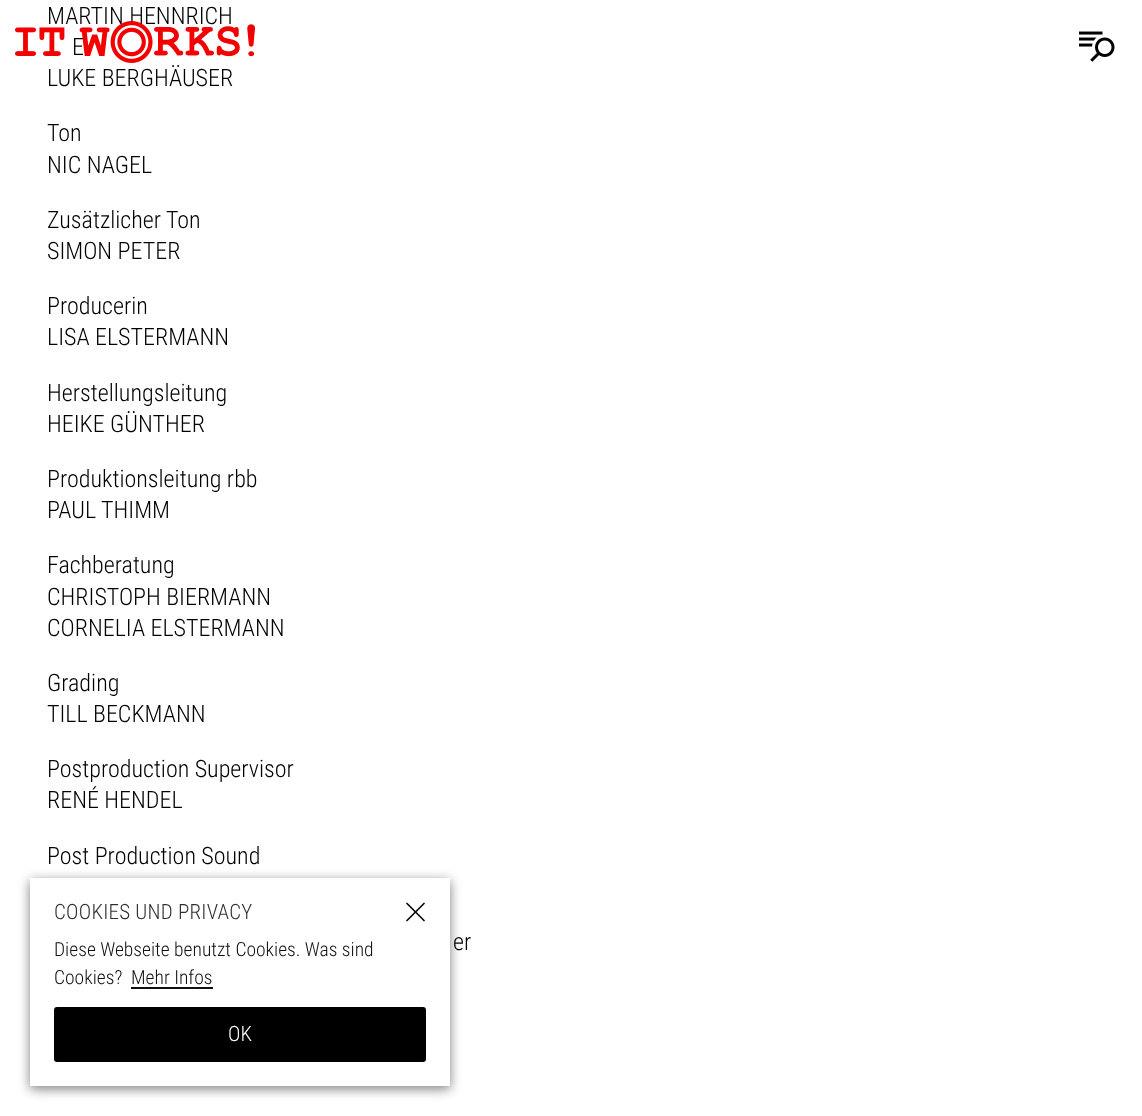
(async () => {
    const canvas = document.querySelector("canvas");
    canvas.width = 1142;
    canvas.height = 1116;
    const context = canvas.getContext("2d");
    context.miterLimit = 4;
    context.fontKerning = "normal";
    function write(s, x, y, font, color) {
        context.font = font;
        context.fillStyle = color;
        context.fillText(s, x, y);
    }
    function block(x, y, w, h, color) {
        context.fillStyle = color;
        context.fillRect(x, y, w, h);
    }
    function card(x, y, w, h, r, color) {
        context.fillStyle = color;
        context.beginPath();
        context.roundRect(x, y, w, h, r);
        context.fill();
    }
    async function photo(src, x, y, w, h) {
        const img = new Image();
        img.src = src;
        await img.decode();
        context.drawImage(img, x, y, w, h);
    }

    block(0, 0, 1142, 1116, "rgb(255, 255, 255)");
    write("MARTIN HENNRICH", 47, 24, "300 24px Roboto Condensed", "rgb(0, 0, 0)");
    write("E", 72, 55, "300 24px Roboto Condensed", "rgb(0, 0, 0)");
    write("LUKE BERGHÄUSER", 47, 86, "300 24px Roboto Condensed", "rgb(0, 0, 0)");
    write("Ton", 47, 141, "300 24px Roboto Condensed", "rgb(0, 0, 0)");
    write("NIC NAGEL", 47, 173, "300 24px Roboto Condensed", "rgb(0, 0, 0)");
    write("Zusätzlicher Ton", 47, 228, "300 24px Roboto Condensed", "rgb(0, 0, 0)");
    write("SIMON PETER", 47, 259, "300 24px Roboto Condensed", "rgb(0, 0, 0)");
    write("Producerin", 47, 314, "300 24px Roboto Condensed", "rgb(0, 0, 0)");
    write("LISA ELSTERMANN", 47, 345, "300 24px Roboto Condensed", "rgb(0, 0, 0)");
    write("Herstellungsleitung", 47, 401, "300 24px Roboto Condensed", "rgb(0, 0, 0)");
    write("HEIKE GÜNTHER", 47, 432, "300 24px Roboto Condensed", "rgb(0, 0, 0)");
    write("Produktionsleitung rbb", 47, 487, "300 24px Roboto Condensed", "rgb(0, 0, 0)");
    write("PAUL THIMM", 47, 518, "300 24px Roboto Condensed", "rgb(0, 0, 0)");
    write("Fachberatung", 47, 573, "300 24px Roboto Condensed", "rgb(0, 0, 0)");
    write("CHRISTOPH BIERMANN", 47, 605, "300 24px Roboto Condensed", "rgb(0, 0, 0)");
    write("CORNELIA ELSTERMANN", 47, 636, "300 24px Roboto Condensed", "rgb(0, 0, 0)");
    write("Grading", 47, 691, "300 24px Roboto Condensed", "rgb(0, 0, 0)");
    write("TILL BECKMANN", 47, 722, "300 24px Roboto Condensed", "rgb(0, 0, 0)");
    write("Postproduction Supervisor", 47, 777, "300 24px Roboto Condensed", "rgb(0, 0, 0)");
    write("RENÉ HENDEL", 47, 808, "300 24px Roboto Condensed", "rgb(0, 0, 0)");
    write("Post Production Sound", 47, 864, "300 24px Roboto Condensed", "rgb(0, 0, 0)");
    write("er", 453, 950, "300 24px Roboto Condensed", "rgb(0, 0, 0)");
    await photo("media/1.png", 15, 21, 240, 42);
    await photo("media/2.png", 1079, 31, 36, 31);
    context.fillStyle = "rgba(0, 0, 0, 0.5)";
    context.filter = "blur(6px)";
    context.beginPath();
    context.rect(30, 881, 420, 208);
    context.fill();
    context.filter = "none";
    block(30, 878, 420, 208, "rgb(255, 255, 255)");
    context.letterSpacing = "0.25px";
    write("COOKIES UND PRIVACY", 54, 919, "300 21px Roboto Condensed", "rgb(48, 48, 48)");
    await photo("media/3.png", 406, 902, 19, 20);
    context.letterSpacing = "0px";
    write("Diese Webseite benutzt Cookies. Was sind", 54, 956, "300 19.5px Roboto Condensed", "rgb(16, 16, 16)");
    write("Cookies?", 54, 984, "300 19.5px Roboto Condensed", "rgb(16, 16, 16)");
    write("Mehr Infos", 131, 984, "300 19.5px Roboto Condensed", "rgb(16, 16, 16)");
    block(131, 987, 82, 2, "rgb(16, 16, 16)");
    card(54, 1007, 372, 55, 3, "rgb(0, 0, 0)");
    write("OK", 228, 1041, "300 21px Roboto Condensed", "rgb(255, 255, 255)");
})();
